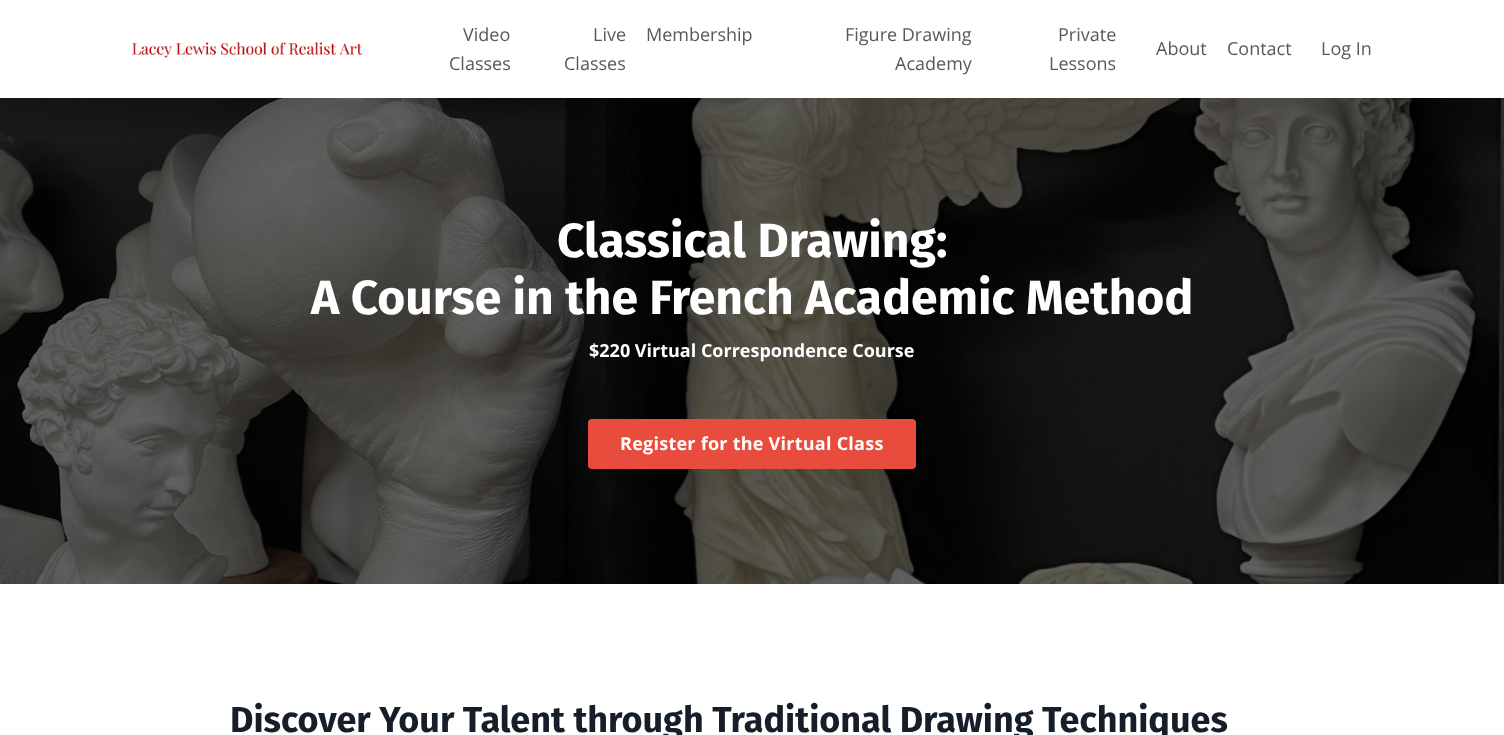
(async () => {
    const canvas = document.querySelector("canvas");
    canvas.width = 1504;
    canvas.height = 735;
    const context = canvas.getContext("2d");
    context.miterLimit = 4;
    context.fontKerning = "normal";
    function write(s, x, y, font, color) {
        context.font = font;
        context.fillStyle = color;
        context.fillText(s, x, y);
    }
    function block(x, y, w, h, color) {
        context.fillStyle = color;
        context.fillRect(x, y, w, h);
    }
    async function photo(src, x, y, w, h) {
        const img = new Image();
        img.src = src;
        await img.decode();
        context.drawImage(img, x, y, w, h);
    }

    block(0, 0, 1504, 735, "rgb(255, 255, 255)");
    await photo("media/1.png", 132, 42, 231, 16);
    write("Video", 463, 41, "18px Open Sans", "rgb(89, 89, 89)");
    write("Classes", 449, 70, "18px Open Sans", "rgb(89, 89, 89)");
    write("Live", 593, 41, "18px Open Sans", "rgb(89, 89, 89)");
    write("Classes", 564, 70, "18px Open Sans", "rgb(89, 89, 89)");
    write("Membership", 646, 41, "18px Open Sans", "rgb(89, 89, 89)");
    write("Figure Drawing", 845, 41, "18px Open Sans", "rgb(89, 89, 89)");
    write("Academy", 895, 70, "18px Open Sans", "rgb(89, 89, 89)");
    write("Private", 1058, 41, "18px Open Sans", "rgb(89, 89, 89)");
    write("Lessons", 1049, 70, "18px Open Sans", "rgb(89, 89, 89)");
    write("About", 1156, 55, "18px Open Sans", "rgb(89, 89, 89)");
    write("Contact", 1227, 55, "18px Open Sans", "rgb(89, 89, 89)");
    write("Log In", 1321, 55, "18px Open Sans", "rgb(89, 89, 89)");
    await photo("media/2.png", 0, 98, 1504, 486);
    write("Classical Drawing:", 557, 257, "bold 48px Fira Sans", "rgb(255, 255, 255)");
    write("A Course in the French Academic Method", 311, 314, "bold 48px Fira Sans", "rgb(255, 255, 255)");
    write("$220 Virtual Correspondence Course", 589, 357, "bold 18px Open Sans", "rgb(255, 255, 255)");
    context.fillStyle = "rgb(231, 76, 60)";
    context.beginPath();
    context.roundRect(589, 420, 326, 48, 3);
    context.fill();
    context.strokeStyle = "rgb(231, 76, 60)";
    context.lineWidth = 2;
    context.stroke();
    context.letterSpacing = "0.25px";
    write("Register for the Virtual Class", 620, 450, "bold 18px Open Sans", "rgb(255, 255, 255)");
    context.letterSpacing = "0px";
    write("Discover Your Talent through Traditional Drawing Techniques", 230, 732, "bold 36px Fira Sans", "rgb(22, 30, 42)");
})();
